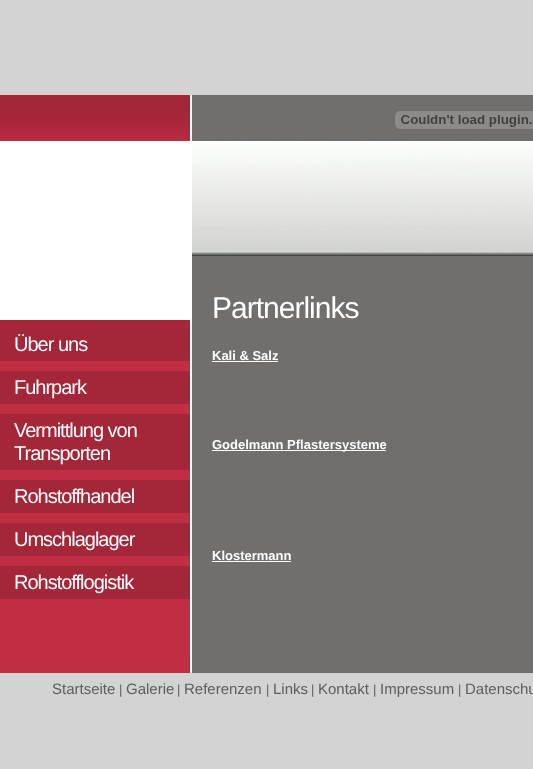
(async () => {
    const canvas = document.querySelector("canvas");
    canvas.width = 533;
    canvas.height = 769;
    const context = canvas.getContext("2d");
    context.miterLimit = 4;
    context.fontKerning = "normal";
    function write(s, x, y, font, color) {
        context.font = font;
        context.fillStyle = color;
        context.fillText(s, x, y);
    }
    function block(x, y, w, h, color) {
        context.fillStyle = color;
        context.fillRect(x, y, w, h);
    }
    async function photo(src, x, y, w, h) {
        const img = new Image();
        img.src = src;
        await img.decode();
        context.drawImage(img, x, y, w, h);
    }

    block(0, 0, 533, 769, "rgb(211, 211, 211)");
    await photo("media/1.png", 0, 95, 533, 16);
    block(0, 143, 192, 175, "rgb(255, 255, 255)");
    await photo("media/2.png", 0, 111, 190, 30);
    block(190, 111, 2, 32, "rgb(255, 255, 255)");
    block(0, 141, 533, 2, "rgb(255, 255, 255)");
    block(192, 111, 341, 30, "rgb(112, 111, 109)");
    await photo("media/3.png", 395, 111, 138, 18);
    await photo("media/4.png", 192, 143, 341, 113);
    block(190, 314, 2, 347, "rgb(255, 255, 255)");
    block(0, 318, 192, 2, "rgb(255, 255, 255)");
    block(192, 256, 341, 401, "rgb(112, 111, 109)");
    context.letterSpacing = "-1px";
    write("Partnerlinks", 212, 318, "30px Liberation Sans", "rgb(255, 255, 255)");
    context.letterSpacing = "0px";
    write("Kali & Salz", 212, 360, "bold 13px Liberation Sans", "rgb(255, 255, 255)");
    block(212, 361, 66, 1, "rgb(255, 255, 255)");
    block(212, 450, 174, 1, "rgb(255, 255, 255)");
    write("Godelmann Pflastersysteme", 212, 449, "bold 13px Liberation Sans", "rgb(255, 255, 255)");
    write("Klostermann", 212, 560, "bold 13px Liberation Sans", "rgb(255, 255, 255)");
    block(212, 561, 79, 1, "rgb(255, 255, 255)");
    block(0, 361, 190, 296, "rgb(193, 45, 67)");
    await photo("media/5.png", 0, 320, 190, 8);
    block(0, 328, 190, 33, "rgb(164, 38, 57)");
    context.letterSpacing = "-1px";
    write("Über uns", 14, 351, "20px Liberation Sans", "rgb(255, 255, 255)");
    block(0, 371, 190, 33, "rgb(164, 38, 57)");
    write("Fuhrpark", 14, 394, "20px Liberation Sans", "rgb(255, 255, 255)");
    block(0, 414, 190, 56, "rgb(164, 38, 57)");
    write("Vermittlung von", 14, 437, "20px Liberation Sans", "rgb(255, 255, 255)");
    write("Transporten", 14, 460, "20px Liberation Sans", "rgb(255, 255, 255)");
    block(0, 480, 190, 33, "rgb(164, 38, 57)");
    write("Rohstoffhandel", 14, 503, "20px Liberation Sans", "rgb(255, 255, 255)");
    block(0, 523, 190, 33, "rgb(164, 38, 57)");
    write("Umschlaglager", 14, 546, "20px Liberation Sans", "rgb(255, 255, 255)");
    block(0, 566, 190, 33, "rgb(164, 38, 57)");
    write("Rohstofflogistik", 14, 589, "20px Liberation Sans", "rgb(255, 255, 255)");
    await photo("media/6.png", 0, 657, 533, 16);
    context.letterSpacing = "0px";
    write("Startseite", 52, 694, "15px Liberation Sans", "rgb(93, 93, 93)");
    write("|", 119, 694, "13px Liberation Sans", "rgb(93, 93, 93)");
    write("Galerie", 126, 694, "15px Liberation Sans", "rgb(93, 93, 93)");
    write("|", 177, 694, "13px Liberation Sans", "rgb(93, 93, 93)");
    write("Referenzen", 184, 694, "15px Liberation Sans", "rgb(93, 93, 93)");
    write("|", 266, 694, "13px Liberation Sans", "rgb(93, 93, 93)");
    write("Links", 273, 694, "15px Liberation Sans", "rgb(93, 93, 93)");
    write("|", 311, 694, "13px Liberation Sans", "rgb(93, 93, 93)");
    write("Kontakt", 318, 694, "15px Liberation Sans", "rgb(93, 93, 93)");
    write("|", 373, 694, "13px Liberation Sans", "rgb(93, 93, 93)");
    write("Impressum", 380, 694, "15px Liberation Sans", "rgb(93, 93, 93)");
    write("|", 458, 694, "13px Liberation Sans", "rgb(93, 93, 93)");
    write("Datenschu", 465, 694, "15px Liberation Sans", "rgb(93, 93, 93)");
})();
